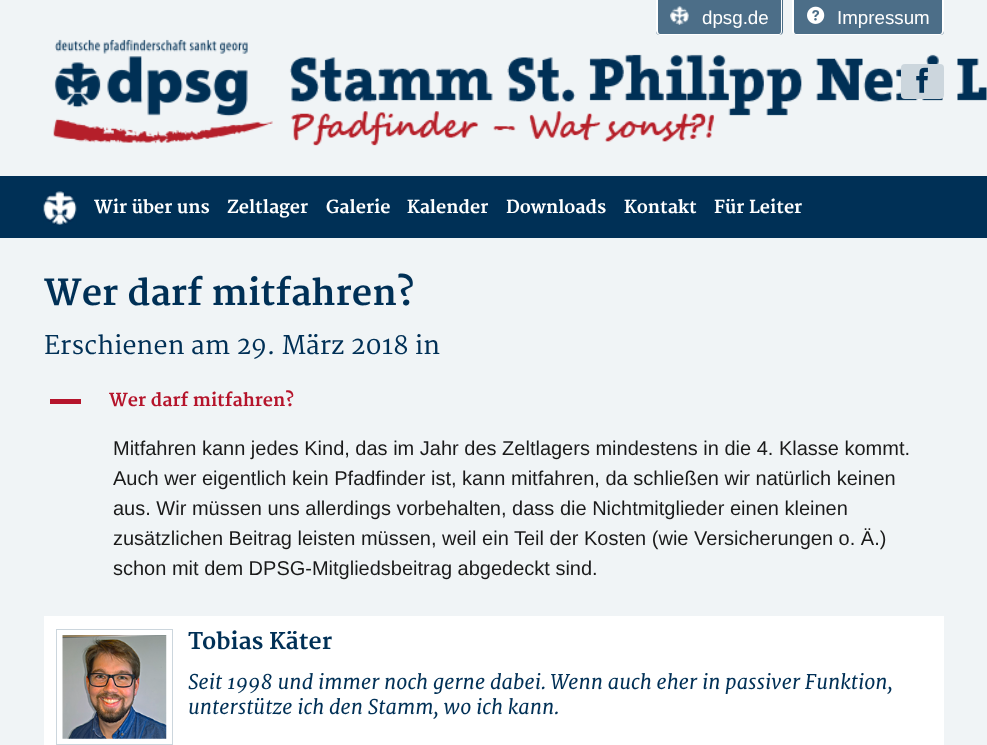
(async () => {
    const canvas = document.querySelector("canvas");
    canvas.width = 987;
    canvas.height = 745;
    const context = canvas.getContext("2d");
    context.miterLimit = 4;
    context.fontKerning = "normal";
    function write(s, x, y, font, color) {
        context.font = font;
        context.fillStyle = color;
        context.fillText(s, x, y);
    }
    function block(x, y, w, h, color) {
        context.fillStyle = color;
        context.fillRect(x, y, w, h);
    }
    function card(x, y, w, h, r, color) {
        context.fillStyle = color;
        context.beginPath();
        context.roundRect(x, y, w, h, r);
        context.fill();
    }
    async function photo(src, x, y, w, h) {
        const img = new Image();
        img.src = src;
        await img.decode();
        context.drawImage(img, x, y, w, h);
    }

    block(0, 0, 987, 745, "rgb(240, 244, 246)");
    context.fillStyle = "rgb(76, 110, 136)";
    context.beginPath();
    context.roundRect(656, 0, 127, 35, [0, 0, 4, 4]);
    context.fill();
    context.fillStyle = "rgb(255, 255, 255)";
    context.beginPath();
    context.moveTo(656, 0);
    context.lineTo(782, 0);
    context.lineTo(782, 31);
    context.bezierCurveTo(782, 33, 781, 35, 779, 35);
    context.lineTo(660, 35);
    context.bezierCurveTo(658, 35, 656, 33, 656, 31);
    context.closePath();
    context.moveTo(658, 0);
    context.lineTo(781, 0);
    context.lineTo(781, 31);
    context.bezierCurveTo(781, 33, 780, 34, 779, 34);
    context.lineTo(660, 34);
    context.bezierCurveTo(659, 34, 658, 33, 658, 31);
    context.closePath();
    context.fill("evenodd");
    await photo("media/1.png", 670, 6, 19, 19);
    write("dpsg.de", 702, 24, "18.75px Liberation Sans", "rgb(255, 255, 255)");
    context.fillStyle = "rgb(76, 110, 136)";
    context.beginPath();
    context.roundRect(793, 0, 151, 35, [0, 0, 4, 4]);
    context.fill();
    context.fillStyle = "rgb(255, 255, 255)";
    context.beginPath();
    context.moveTo(792, 0);
    context.lineTo(944, 0);
    context.lineTo(944, 31);
    context.bezierCurveTo(944, 33, 942, 35, 940, 35);
    context.lineTo(796, 35);
    context.bezierCurveTo(794, 35, 792, 33, 792, 31);
    context.closePath();
    context.moveTo(794, 0);
    context.lineTo(942, 0);
    context.lineTo(942, 31);
    context.bezierCurveTo(942, 33, 941, 34, 940, 34);
    context.lineTo(796, 34);
    context.bezierCurveTo(795, 34, 794, 33, 794, 31);
    context.closePath();
    context.fill("evenodd");
    await photo("media/2.png", 807, 6, 18, 18);
    write("Impressum", 837, 24, "18.75px Liberation Sans", "rgb(255, 255, 255)");
    await photo("media/4.png", 53, 39, 934, 107);
    card(901, 64, 43, 35, 4, "rgb(204, 214, 221)");
    await photo("media/3.png", 916, 67, 12, 26);
    block(0, 176, 987, 62, "rgb(0, 48, 86)");
    await photo("media/5.png", 43, 191, 34, 34);
    write("Wir über uns", 94, 213, "bold 17.5px Merriweather", "rgb(255, 255, 255)");
    write("Zeltlager", 227, 213, "bold 17.5px Merriweather", "rgb(255, 255, 255)");
    write("Galerie", 326, 213, "bold 17.5px Merriweather", "rgb(255, 255, 255)");
    write("Kalender", 407, 213, "bold 17.5px Merriweather", "rgb(255, 255, 255)");
    write("Downloads", 506, 213, "bold 17.5px Merriweather", "rgb(255, 255, 255)");
    write("Kontakt", 624, 213, "bold 17.5px Merriweather", "rgb(255, 255, 255)");
    write("Für Leiter", 714, 213, "bold 17.5px Merriweather", "rgb(255, 255, 255)");
    write("Wer darf mitfahren?", 44, 305, "bold 35px Merriweather", "rgb(0, 48, 86)");
    write("Erschienen am 29. März 2018 in", 44, 354, "25px Merriweather", "rgb(0, 48, 86)");
    block(50, 399, 31, 5, "rgb(181, 20, 43)");
    write("Wer darf mitfahren?", 109, 406, "bold 17.5px Merriweather", "rgb(181, 20, 43)");
    write("Mitfahren kann jedes Kind, das im Jahr des Zeltlagers mindestens in die 4. Klasse kommt.", 113, 455, "20px Liberation Sans", "rgb(26, 26, 26)");
    write("Auch wer eigentlich kein Pfadfinder ist, kann mitfahren, da schließen wir natürlich keinen", 113, 485, "20px Liberation Sans", "rgb(26, 26, 26)");
    write("aus. Wir müssen uns allerdings vorbehalten, dass die Nichtmitglieder einen kleinen", 113, 515, "20px Liberation Sans", "rgb(26, 26, 26)");
    write("zusätzlichen Beitrag leisten müssen, weil ein Teil der Kosten (wie Versicherungen o. Ä.)", 113, 545, "20px Liberation Sans", "rgb(26, 26, 26)");
    write("schon mit dem DPSG-Mitgliedsbeitrag abgedeckt sind.", 113, 575, "20px Liberation Sans", "rgb(26, 26, 26)");
    block(44, 616, 900, 129, "rgb(255, 255, 255)");
    context.strokeStyle = "rgb(204, 214, 221)";
    context.strokeRect(56.5, 629.5, 116, 115);
    await photo("media/6.png", 62, 635, 105, 104);
    write("Tobias Käter", 188, 649, "bold 22.5px Merriweather", "rgb(0, 48, 86)");
    write("Seit 1998 und immer noch gerne dabei. Wenn auch eher in passiver Funktion,", 188, 689, "italic 20px Merriweather", "rgb(0, 48, 86)");
    write("unterstütze ich den Stamm, wo ich kann.", 188, 714, "italic 20px Merriweather", "rgb(0, 48, 86)");
})();
